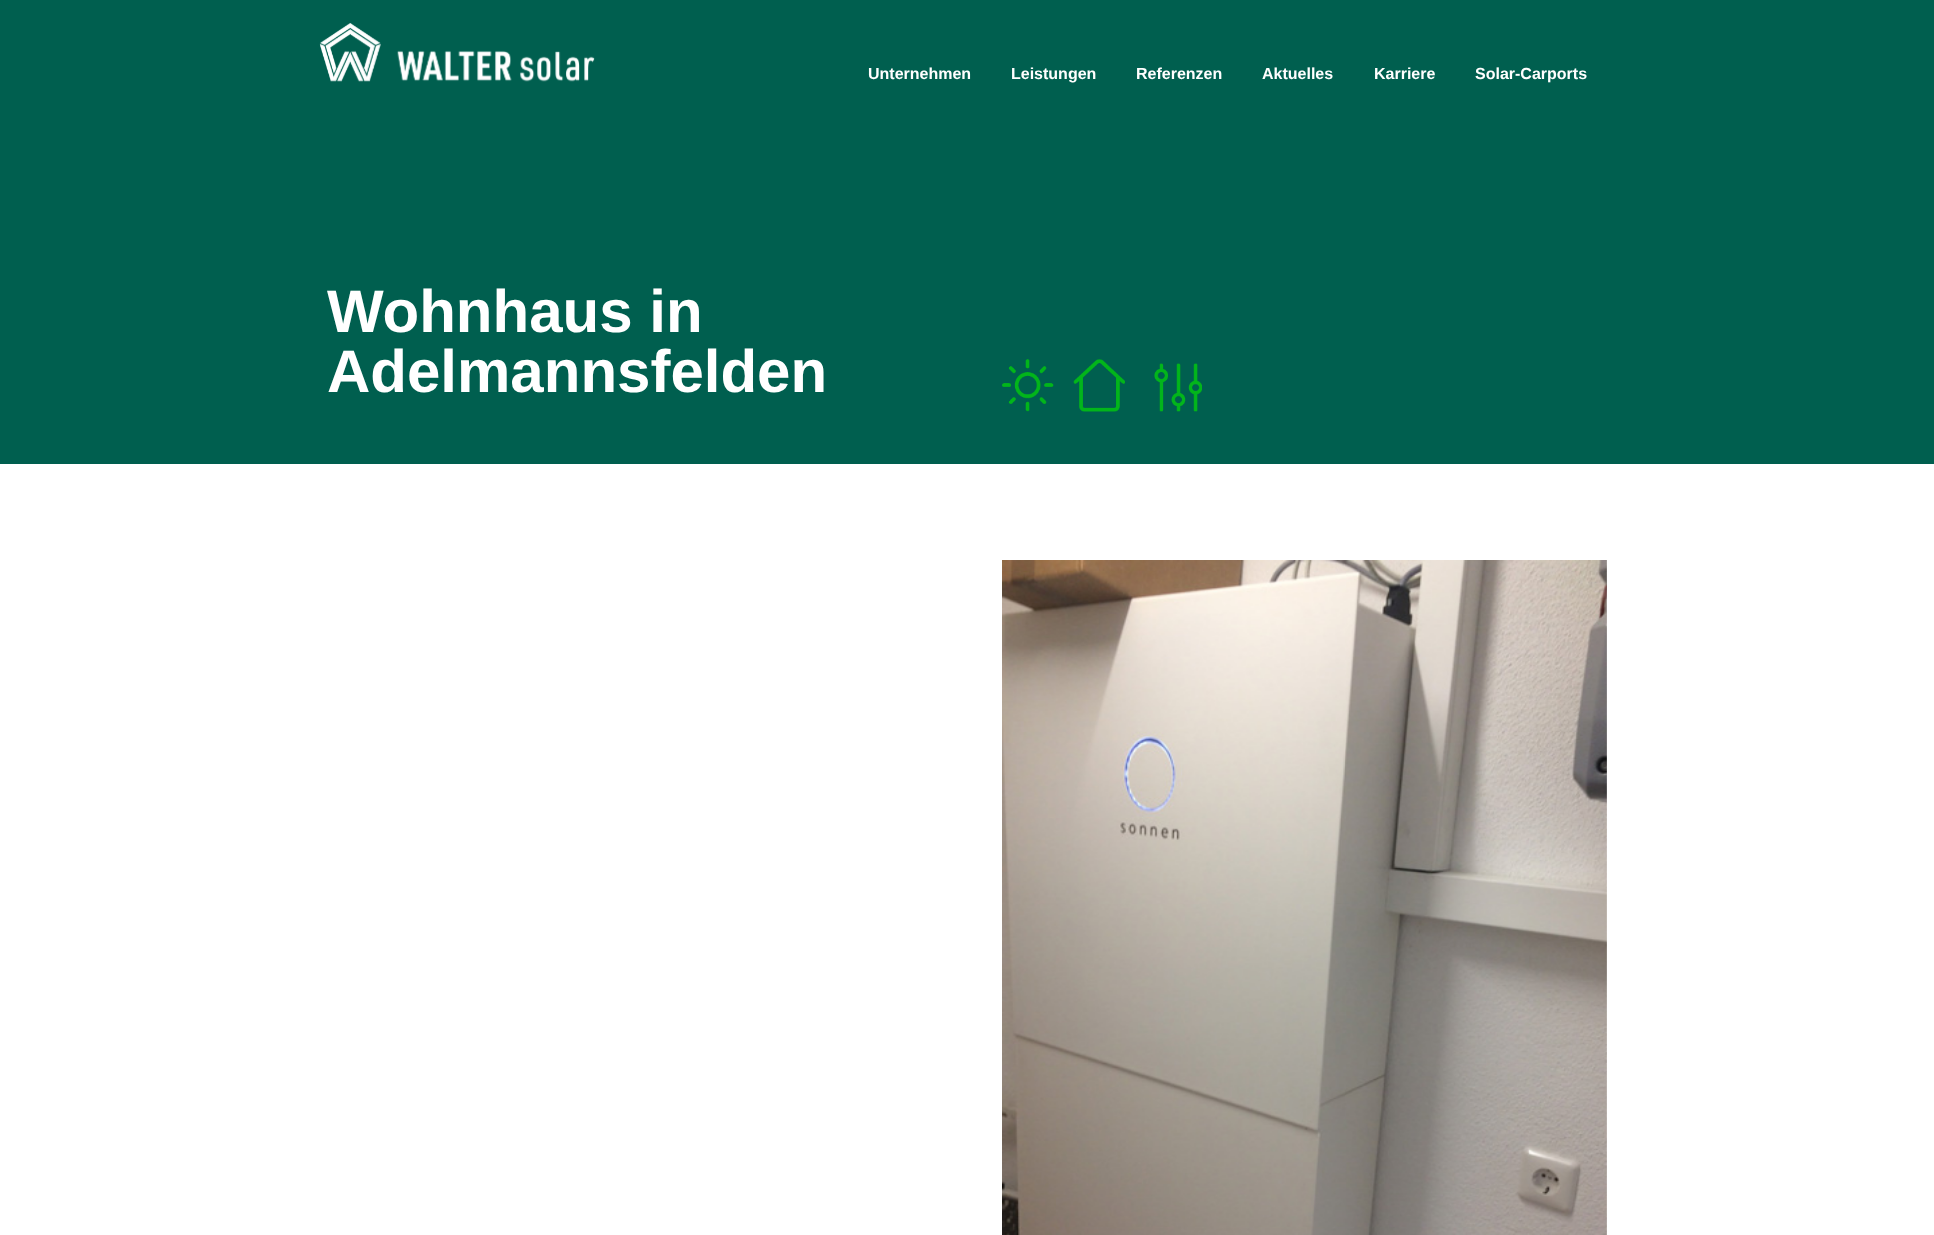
(async () => {
    const canvas = document.querySelector("canvas");
    canvas.width = 1934;
    canvas.height = 1235;
    const context = canvas.getContext("2d");
    context.miterLimit = 4;
    context.fontKerning = "normal";
    function write(s, x, y, font, color) {
        context.font = font;
        context.fillStyle = color;
        context.fillText(s, x, y);
    }
    function block(x, y, w, h, color) {
        context.fillStyle = color;
        context.fillRect(x, y, w, h);
    }
    async function photo(src, x, y, w, h) {
        const img = new Image();
        img.src = src;
        await img.decode();
        context.drawImage(img, x, y, w, h);
    }

    block(0, 0, 1934, 1235, "rgb(255, 255, 255)");
    block(0, 0, 1934, 464, "rgb(0, 95, 79)");
    await photo("media/1.png", 319, 23, 276, 59);
    write("Unternehmen", 868, 79, "bold 16px Liberation Sans", "rgb(255, 255, 255)");
    write("Leistungen", 1011, 79, "bold 16px Liberation Sans", "rgb(255, 255, 255)");
    write("Referenzen", 1136, 79, "bold 16px Liberation Sans", "rgb(255, 255, 255)");
    write("Aktuelles", 1262, 79, "bold 16px Liberation Sans", "rgb(255, 255, 255)");
    write("Karriere", 1374, 79, "bold 16px Liberation Sans", "rgb(255, 255, 255)");
    write("Solar-Carports", 1475, 79, "bold 16px Liberation Sans", "rgb(255, 255, 255)");
    write("Wohnhaus in", 327, 332, "bold 60px Liberation Sans", "rgb(255, 255, 255)");
    write("Adelmannsfelden", 327, 392, "bold 60px Liberation Sans", "rgb(255, 255, 255)");
    await photo("media/2.png", 1002, 359, 200, 53);
    await photo("media/3.png", 1002, 560, 605, 675);
})();
